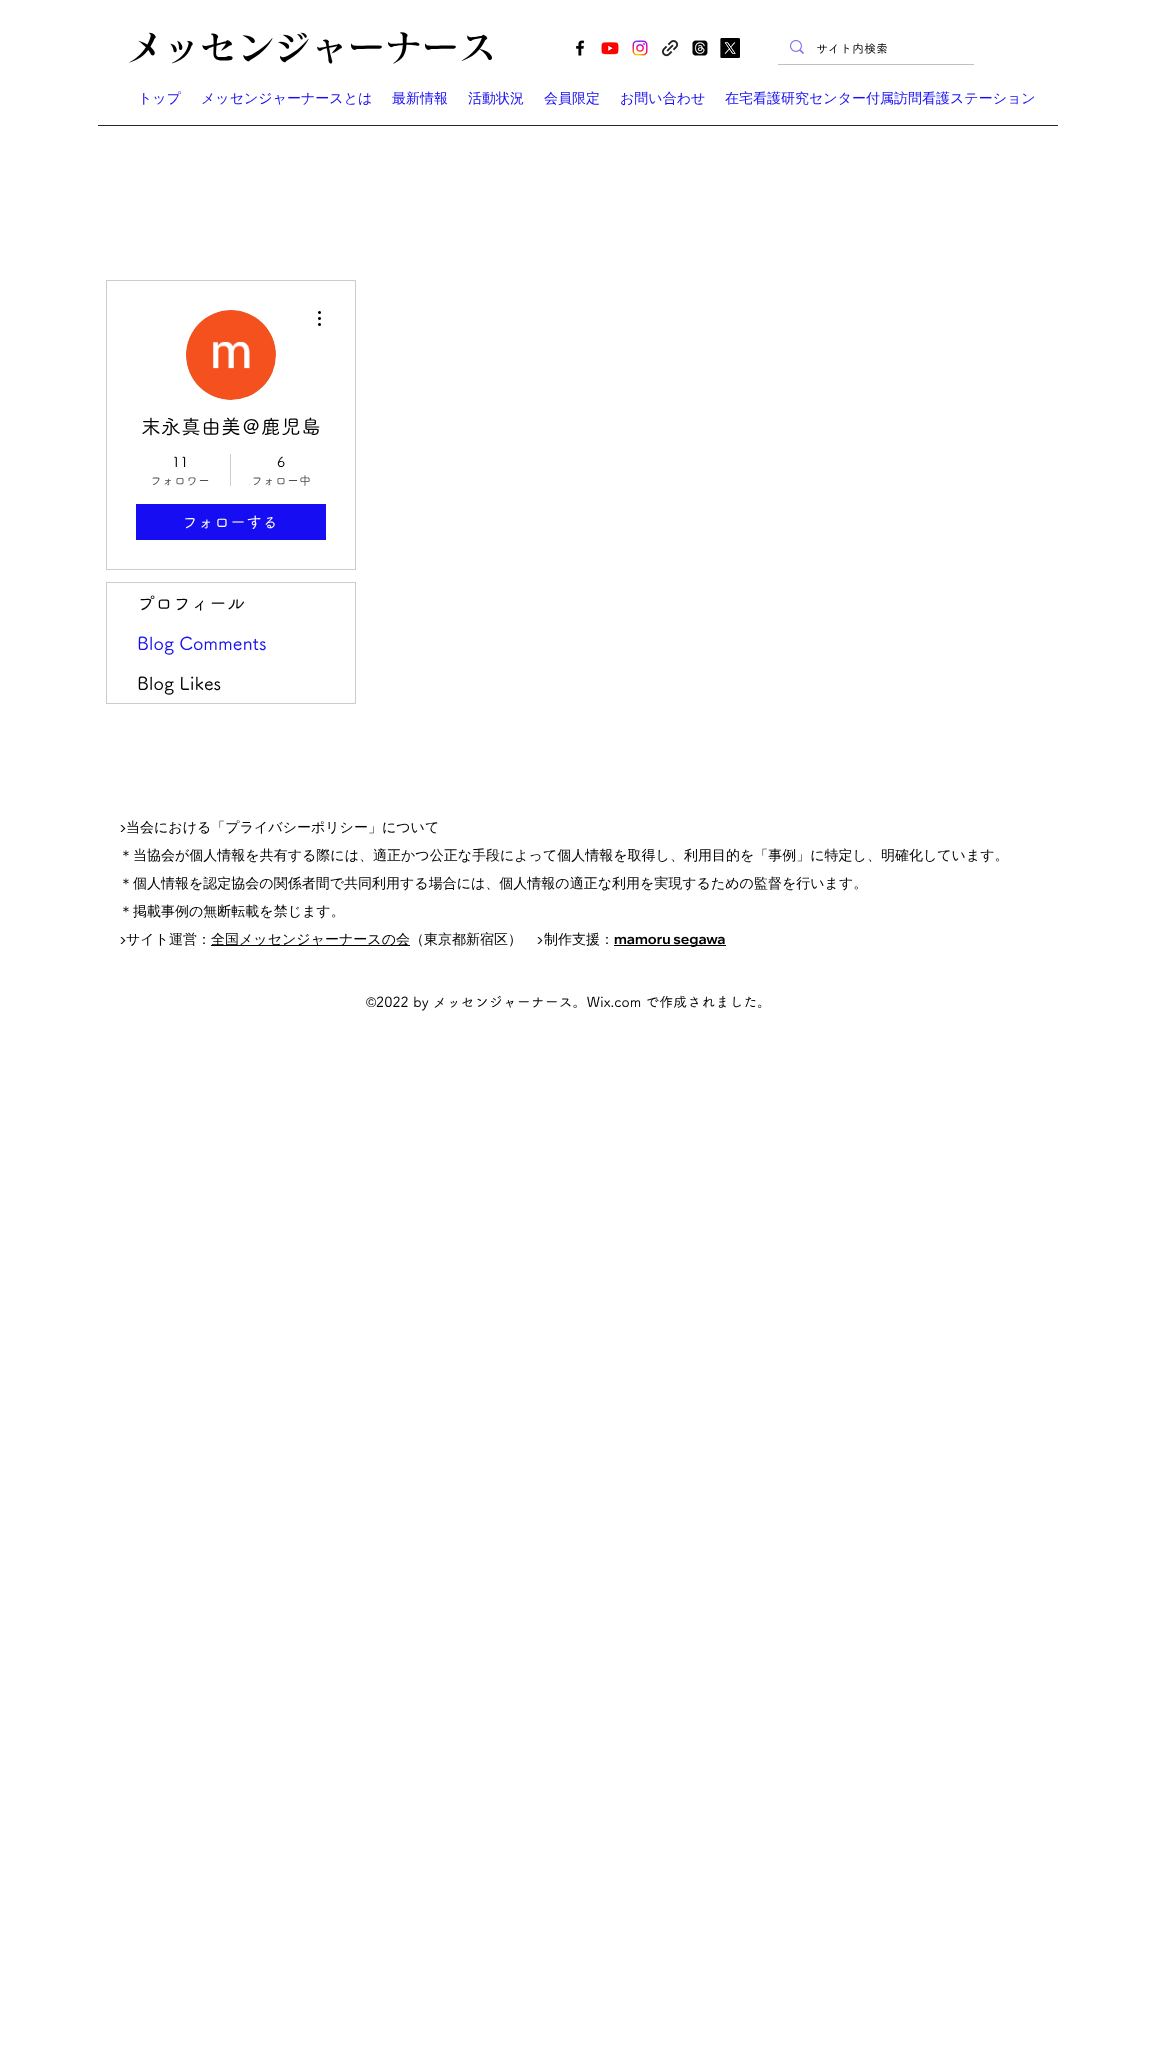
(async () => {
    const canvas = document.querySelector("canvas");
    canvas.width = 1151;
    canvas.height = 2056;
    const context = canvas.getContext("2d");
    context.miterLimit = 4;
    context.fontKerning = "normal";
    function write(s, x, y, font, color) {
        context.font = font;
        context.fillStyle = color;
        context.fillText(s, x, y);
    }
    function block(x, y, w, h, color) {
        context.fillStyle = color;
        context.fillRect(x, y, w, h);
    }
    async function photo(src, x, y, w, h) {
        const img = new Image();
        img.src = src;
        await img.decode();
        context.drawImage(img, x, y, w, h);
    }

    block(0, 0, 1151, 2056, "rgb(255, 255, 255)");
    write("メッセンジャーナース", 126, 61, "600 37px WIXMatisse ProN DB", "rgb(0, 0, 0)");
    await photo("media/1.png", 576, 40, 9, 16);
    await photo("media/2.png", 601, 42, 18, 13);
    await photo("media/3.png", 632, 40, 16, 16);
    await photo("media/4.png", 661, 39, 18, 18);
    await photo("media/5.png", 692, 40, 16, 16);
    await photo("media/6.png", 720, 38, 20, 20);
    block(778, 64, 196, 1, "rgb(191, 191, 191)");
    await photo("media/7.png", 790, 40, 14, 14);
    write("サイト内検索", 816, 53, "500 12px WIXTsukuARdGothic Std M", "rgb(0, 0, 0)");
    write("トップ", 138, 103, "500 14px WenQuanYi Zen Hei", "rgb(23, 13, 242)");
    write("メッセンジャーナースとは", 201, 103, "500 14px WenQuanYi Zen Hei", "rgb(23, 13, 242)");
    write("最新情報", 392, 103, "500 14px WenQuanYi Zen Hei", "rgb(23, 13, 242)");
    write("活動状況", 468, 103, "500 14px WenQuanYi Zen Hei", "rgb(23, 13, 242)");
    write("会員限定", 544, 103, "500 14px WenQuanYi Zen Hei", "rgb(23, 13, 242)");
    write("お問い合わせ", 620, 103, "500 14px WenQuanYi Zen Hei", "rgb(23, 13, 242)");
    write("在宅看護研究センター付属訪問看護ステーション", 725, 103, "500 14px WenQuanYi Zen Hei", "rgb(23, 13, 242)");
    block(98, 125, 960, 1, "rgb(40, 38, 38)");
    context.strokeStyle = "rgb(204, 204, 204)";
    context.strokeRect(106.5, 280.5, 249, 289);
    context.fillStyle = "rgb(216, 216, 216)";
    context.beginPath();
    context.arc(231, 355, 45, 0, Math.PI * 2);
    context.fill();
    await photo("media/8.png", 186, 310, 90, 90);
    await photo("media/9.png", 318, 311, 3, 15);
    write("末永真由美＠鹿児島", 141, 434, "500 20px WIXTsukuARdGothic Std M", "rgb(0, 0, 0)");
    write("11", 172, 467, "500 14px WIXTsukuARdGothic Std M", "rgb(0, 0, 0)");
    write("フォロワー", 150, 485, "500 12px WIXTsukuARdGothic Std M", "rgb(77, 77, 77)");
    block(230, 454, 1, 32, "rgb(204, 204, 204)");
    write("6", 277, 467, "500 14px WIXTsukuARdGothic Std M", "rgb(0, 0, 0)");
    write("フォロー中", 251, 485, "500 12px WIXTsukuARdGothic Std M", "rgb(77, 77, 77)");
    block(136, 504, 190, 36, "rgb(23, 13, 242)");
    write("フォローする", 182, 528, "500 16px WIXTsukuARdGothic Std M", "rgb(255, 255, 255)");
    context.strokeRect(106.5, 582.5, 249, 121);
    write("プロフィール", 137, 610, "500 18px WIXTsukuARdGothic Std M", "rgb(0, 0, 0)");
    write("Blog Comments", 137, 650, "500 18px WIXTsukuARdGothic Std M", "rgb(23, 13, 242)");
    write("Blog Likes", 137, 690, "500 18px WIXTsukuARdGothic Std M", "rgb(0, 0, 0)");
    write("▶", 119, 832, "bold 14px Wix Madefor Display", "rgb(0, 0, 0)");
    write("当会における「プライバシーポリシー」について", 126, 832, "500 14px WenQuanYi Zen Hei", "rgb(0, 0, 0)");
    write("＊当協会が個人情報を共有する際には、適正かつ公正な手段によって個人情報を取得し、利用目的を「事例」に特定し、明確化しています。", 119, 860, "500 14px WenQuanYi Zen Hei", "rgb(0, 0, 0)");
    write("＊個人情報を認定協会の関係者間で共同利用する場合には、個人情報の適正な利用を実現するための監督を行います。", 119, 888, "500 14px WenQuanYi Zen Hei", "rgb(0, 0, 0)");
    write("＊掲載事例の無断転載を禁じます。", 119, 916, "500 14px WenQuanYi Zen Hei", "rgb(0, 0, 0)");
    write("▶", 119, 944, "bold 14px Wix Madefor Display", "rgb(0, 0, 0)");
    write("サイト運営：", 126, 944, "500 14px WenQuanYi Zen Hei", "rgb(0, 0, 0)");
    block(211, 945, 199, 1, "rgb(0, 0, 0)");
    write("全国メッセンジャーナースの会（東京都新宿区）", 211, 944, "500 14px WenQuanYi Zen Hei", "rgb(0, 0, 0)");
    write("▶", 536, 944, "bold 14px Wix Madefor Display", "rgb(0, 0, 0)");
    write("制作支援：", 544, 944, "500 14px WenQuanYi Zen Hei", "rgb(0, 0, 0)");
    block(614, 945, 112, 1, "rgb(0, 0, 0)");
    write("mamoru segawa", 614, 944, "bold 14px Wix Madefor Display", "rgb(0, 0, 0)");
    write("©", 366, 1007, "14px Liberation Sans", "rgb(0, 0, 0)");
    write("2022 by メッセンジャーナース。Wix.com で作成されました。", 376, 1007, "500 14px WIXTsukuARdGothic Std M", "rgb(0, 0, 0)");
})();
